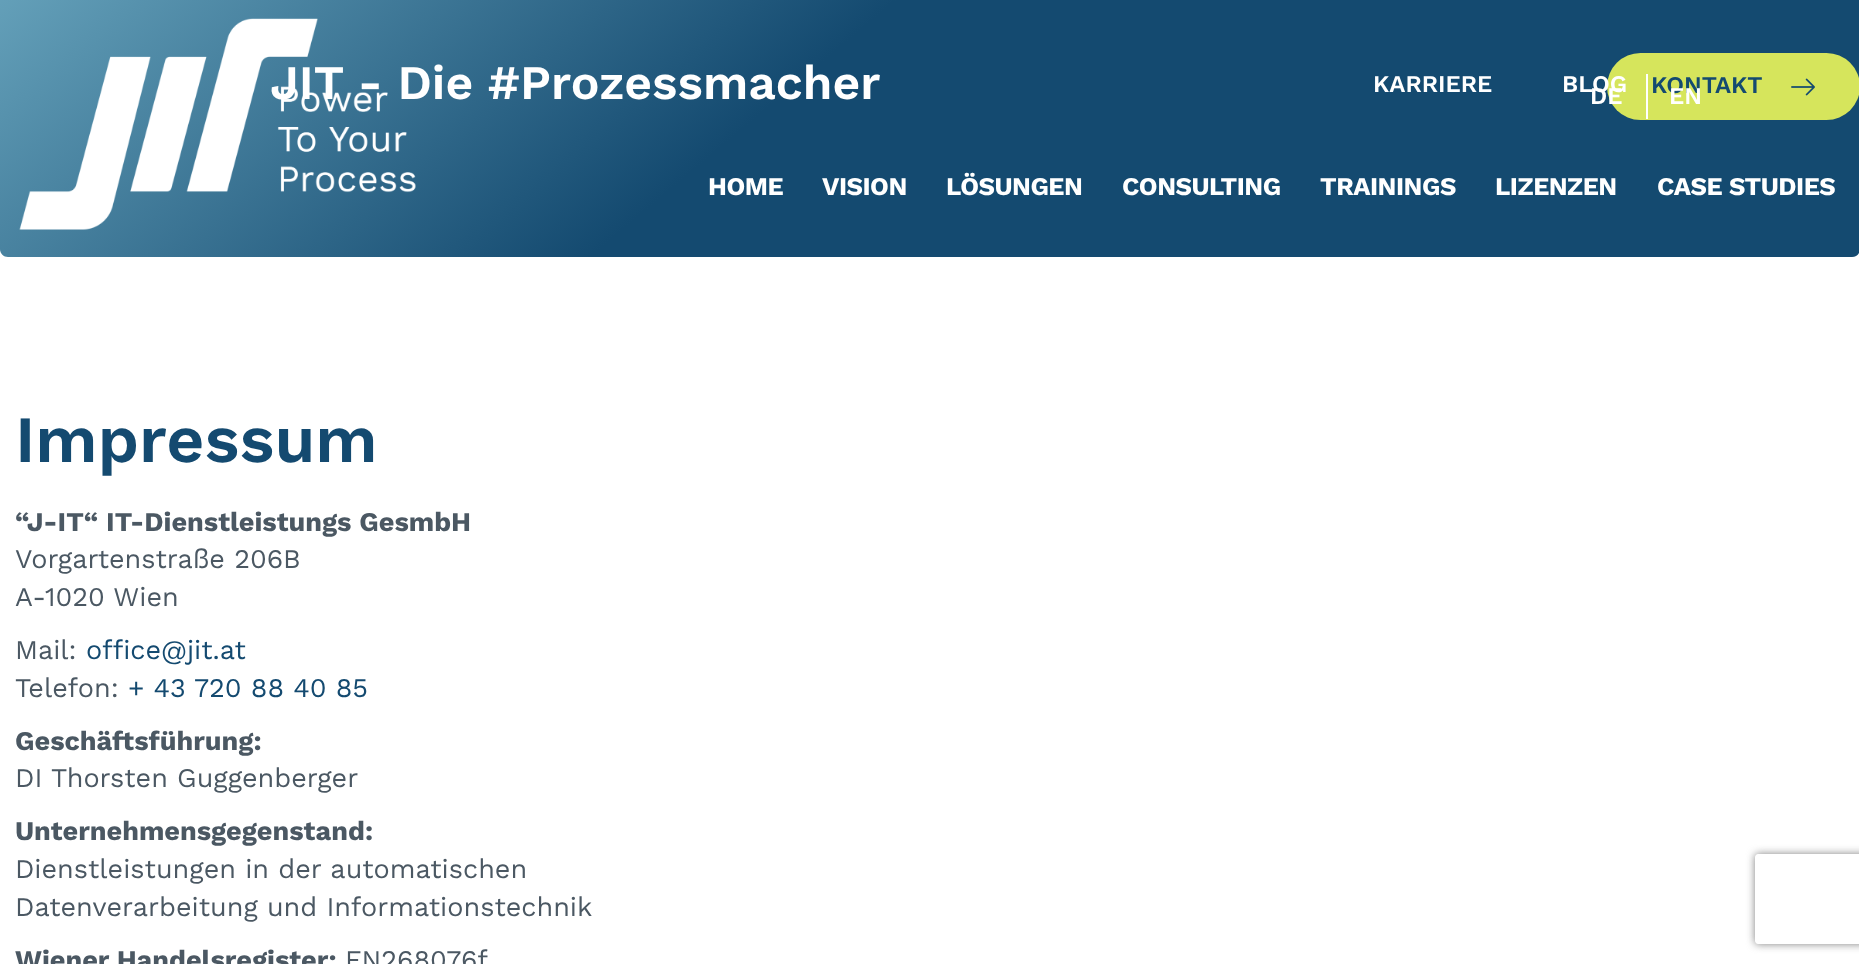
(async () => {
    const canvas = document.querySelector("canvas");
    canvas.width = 1859;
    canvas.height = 964;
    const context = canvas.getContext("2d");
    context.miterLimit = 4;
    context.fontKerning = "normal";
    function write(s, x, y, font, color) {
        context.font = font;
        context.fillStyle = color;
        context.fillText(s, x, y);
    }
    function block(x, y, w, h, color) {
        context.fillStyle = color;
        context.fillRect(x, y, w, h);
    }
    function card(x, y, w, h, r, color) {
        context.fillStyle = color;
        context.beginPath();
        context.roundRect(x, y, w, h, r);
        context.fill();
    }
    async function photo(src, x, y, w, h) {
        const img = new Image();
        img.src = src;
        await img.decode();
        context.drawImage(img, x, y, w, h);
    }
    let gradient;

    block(0, 0, 1859, 964, "rgb(255, 255, 255)");
    gradient = context.createLinearGradient(1407, 637, 453, -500);
    gradient.addColorStop(0.55, "rgb(20, 74, 112)");
    gradient.addColorStop(1, "rgb(112, 173, 196)");
    context.fillStyle = gradient;
    context.beginPath();
    context.moveTo(0, -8);
    context.lineTo(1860, -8);
    context.lineTo(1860, 249);
    context.bezierCurveTo(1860, 253.5, 1856.5, 257, 1852, 257);
    context.lineTo(8, 257);
    context.bezierCurveTo(3.5, 257, 0, 253.5, 0, 249);
    context.closePath();
    context.fill();
    write("JIT - Die #Prozessmacher", 270, 99, "600 48px Work Sans", "rgb(255, 255, 255)");
    write("Impressum", 15, 462, "600 66px Work Sans", "rgb(20, 74, 112)");
    write("“J-IT“ IT-Dienstleistungs GesmbH", 15, 531, "bold 27px Work Sans", "rgb(75, 88, 99)");
    write("Vorgartenstraße 206B", 15, 568, "27px Work Sans", "rgb(75, 88, 99)");
    write("A-1020 Wien", 15, 606, "27px Work Sans", "rgb(75, 88, 99)");
    write("Mail:", 15, 659, "27px Work Sans", "rgb(75, 88, 99)");
    write("office@jit.at", 86, 659, "27px Work Sans", "rgb(20, 74, 112)");
    write("Telefon:", 15, 697, "27px Work Sans", "rgb(75, 88, 99)");
    write("+ 43 720 88 40 85", 128, 697, "27px Work Sans", "rgb(20, 74, 112)");
    write("Geschäftsführung:", 15, 750, "bold 27px Work Sans", "rgb(75, 88, 99)");
    write("DI Thorsten Guggenberger", 15, 787, "27px Work Sans", "rgb(75, 88, 99)");
    write("Unternehmensgegenstand:", 15, 840, "bold 27px Work Sans", "rgb(75, 88, 99)");
    write("Dienstleistungen in der automatischen", 15, 878, "27px Work Sans", "rgb(75, 88, 99)");
    write("Datenverarbeitung und Informationstechnik", 15, 916, "27px Work Sans", "rgb(75, 88, 99)");
    write("Wiener Handelsregister:", 15, 969, "bold 27px Work Sans", "rgb(75, 88, 99)");
    write("FN268076f", 345, 969, "27px Work Sans", "rgb(75, 88, 99)");
    await photo("media/1.png", 19, 18, 397, 212);
    write("KARRIERE", 1373, 92, "600 24px Work Sans", "rgb(255, 255, 255)");
    card(1607, 53, 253, 67, 33.5, "rgb(214, 229, 92)");
    write("BLOG", 1562, 92, "600 24px Work Sans", "rgb(255, 255, 255)");
    write("KONTAKT", 1651, 93, "600 24px Work Sans", "rgb(20, 74, 112)");
    await photo("media/2.png", 1791, 78, 24, 18);
    block(1646, 74, 2, 45, "rgb(255, 255, 255)");
    write("DE", 1590, 104, "600 24px Work Sans", "rgb(255, 255, 255)");
    write("EN", 1669, 104, "600 24px Work Sans", "rgb(255, 255, 255)");
    context.letterSpacing = "-0.5px";
    write("HOME", 708, 195, "bold 25.5px Work Sans", "rgb(255, 255, 255)");
    write("VISION", 822, 195, "bold 25.5px Work Sans", "rgb(255, 255, 255)");
    write("LÖSUNGEN", 946, 195, "bold 25.5px Work Sans", "rgb(255, 255, 255)");
    write("CONSULTING", 1122, 195, "bold 25.5px Work Sans", "rgb(255, 255, 255)");
    write("TRAININGS", 1320, 195, "bold 25.5px Work Sans", "rgb(255, 255, 255)");
    write("LIZENZEN", 1495, 195, "bold 25.5px Work Sans", "rgb(255, 255, 255)");
    write("CASE STUDIES", 1657, 195, "bold 25.5px Work Sans", "rgb(255, 255, 255)");
    context.save();
    context.beginPath();
    context.moveTo(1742, 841);
    context.lineTo(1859, 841);
    context.lineTo(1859, 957);
    context.lineTo(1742, 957);
    context.closePath();
    context.moveTo(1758, 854);
    context.lineTo(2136, 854);
    context.bezierCurveTo(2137.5, 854, 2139, 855.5, 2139, 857);
    context.lineTo(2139, 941);
    context.bezierCurveTo(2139, 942.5, 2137.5, 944, 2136, 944);
    context.lineTo(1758, 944);
    context.bezierCurveTo(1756.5, 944, 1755, 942.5, 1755, 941);
    context.lineTo(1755, 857);
    context.bezierCurveTo(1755, 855.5, 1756.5, 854, 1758, 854);
    context.closePath();
    context.clip("evenodd");
    context.fillStyle = "rgb(128, 128, 128)";
    context.filter = "blur(4px)";
    context.beginPath();
    context.roundRect(1755, 854, 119, 90, 3);
    context.fill();
    context.filter = "none";
    context.restore();
})();
